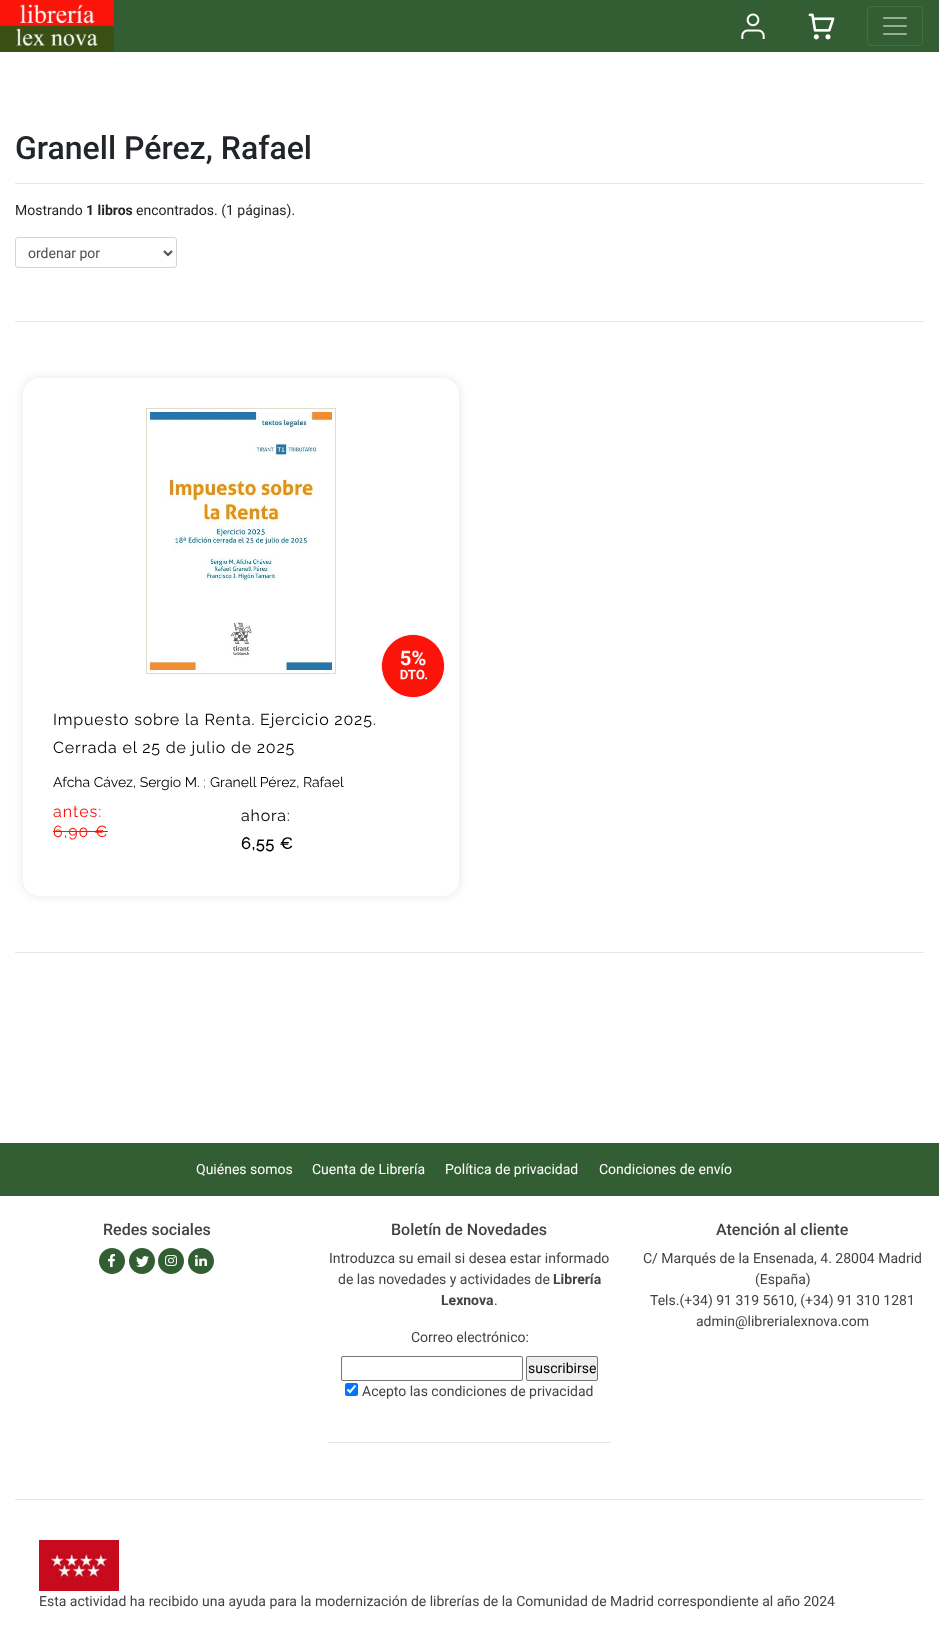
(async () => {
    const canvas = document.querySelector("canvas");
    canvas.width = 939;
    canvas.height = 1631;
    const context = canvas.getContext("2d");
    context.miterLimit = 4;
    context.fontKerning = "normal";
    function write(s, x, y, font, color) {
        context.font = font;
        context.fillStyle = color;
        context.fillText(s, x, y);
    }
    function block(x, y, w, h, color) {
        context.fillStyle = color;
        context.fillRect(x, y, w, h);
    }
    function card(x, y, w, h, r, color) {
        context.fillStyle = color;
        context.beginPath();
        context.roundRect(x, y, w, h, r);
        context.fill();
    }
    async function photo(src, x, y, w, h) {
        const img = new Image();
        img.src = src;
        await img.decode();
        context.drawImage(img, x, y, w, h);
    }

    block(0, 0, 939, 1631, "rgb(255, 255, 255)");
    block(114, 0, 825, 52, "rgb(51, 93, 51)");
    await photo("media/1.png", 0, 0, 114, 52);
    await photo("media/2.png", 741, 13, 24, 26);
    await photo("media/3.png", 808, 13, 27, 27);
    context.beginPath();
    context.roundRect(867.5, 6.5, 55, 39, 3.5);
    context.strokeStyle = "rgb(71, 109, 71)";
    context.stroke();
    await photo("media/4.png", 883, 17, 24, 18);
    write("Granell Pérez, Rafael", 15, 159, "500 32px Roboto", "rgb(33, 37, 41)");
    block(15, 183, 909, 1, "rgb(230, 230, 230)");
    write("Mostrando", 15, 215, "14px Roboto", "rgb(33, 37, 41)");
    write("1 libros", 86, 215, "bold 14px Roboto", "rgb(33, 37, 41)");
    write("encontrados. (1 páginas).", 136, 215, "14px Roboto", "rgb(33, 37, 41)");
    context.beginPath();
    context.roundRect(15.5, 237.5, 161, 30, 2.5);
    context.strokeStyle = "rgb(206, 212, 218)";
    context.stroke();
    context.beginPath();
    context.moveTo(164, 251);
    context.lineTo(168, 255);
    context.lineTo(172, 251);
    context.strokeStyle = "rgb(73, 80, 87)";
    context.lineWidth = 2;
    context.stroke();
    write("ordenar por", 28, 258, "14px Roboto", "rgb(73, 80, 87)");
    block(15, 321, 909, 1, "rgb(230, 230, 230)");
    context.fillStyle = "rgba(0, 0, 0, 0.1)";
    context.filter = "blur(5px)";
    context.beginPath();
    context.roundRect(23, 378, 436, 518, 16);
    context.fill();
    context.filter = "none";
    card(23, 378, 436, 518, 16, "rgb(255, 255, 255)");
    context.strokeStyle = "rgb(226, 220, 207)";
    context.lineWidth = 1;
    context.strokeRect(146.5, 408.5, 189, 265);
    await photo("media/5.png", 150, 412, 182, 258);
    await photo("media/6.png", 381, 634, 64, 64);
    context.letterSpacing = "0.8px";
    write("Impuesto sobre la Renta. Ejercicio 2025.", 53, 725, "16px Raleway", "rgb(0, 0, 0)");
    write("Cerrada el 25 de julio de 2025", 53, 753, "16px Raleway", "rgb(0, 0, 0)");
    context.letterSpacing = "0px";
    write("Afcha Cávez, Sergio M.", 53, 787, "14px Raleway", "rgb(0, 0, 0)");
    write(";", 203, 787, "14px Raleway", "rgb(130, 130, 130)");
    write("Granell Pérez, Rafael", 210, 787, "14px Raleway", "rgb(0, 0, 0)");
    context.letterSpacing = "1px";
    write("antes:", 53, 817, "16px Raleway", "rgb(252, 20, 10)");
    write("6,90 €", 53, 837, "16px Raleway", "rgb(252, 20, 10)");
    block(53, 831, 55, 1, "rgb(252, 20, 10)");
    context.letterSpacing = "0.8px";
    write("ahora:", 241, 821, "16px Raleway", "rgb(0, 0, 0)");
    write("6,55 €", 241, 849, "bold 16px Raleway", "rgb(0, 0, 0)");
    block(15, 952, 909, 1, "rgb(230, 230, 230)");
    block(0, 1143, 939, 53, "rgb(51, 93, 51)");
    context.letterSpacing = "0px";
    write("Quiénes somos", 196, 1174, "14px Roboto", "rgb(255, 255, 255)");
    write("Cuenta de Librería", 312, 1174, "14px Roboto", "rgb(255, 255, 255)");
    write("Política de privacidad", 445, 1174, "14px Roboto", "rgb(255, 255, 255)");
    write("Condiciones de envío", 599, 1174, "14px Roboto", "rgb(255, 255, 255)");
    write("Redes sociales", 103, 1235, "500 16px Roboto", "rgb(67, 67, 67)");
    await photo("media/7.png", 99, 1248, 26, 26);
    await photo("media/8.png", 129, 1248, 26, 26);
    await photo("media/9.png", 158, 1248, 26, 26);
    await photo("media/10.png", 188, 1248, 26, 26);
    write("Boletín de Novedades", 391, 1235, "500 16px Roboto", "rgb(67, 67, 67)");
    write("Introduzca su email si desea estar informado", 329, 1263, "14px Roboto", "rgb(67, 67, 67)");
    write("de las novedades y actividades de", 338, 1284, "14px Roboto", "rgb(67, 67, 67)");
    write("Librería", 553, 1284, "bold 14px Roboto", "rgb(67, 67, 67)");
    write("Lexnova", 441, 1305, "bold 14px Roboto", "rgb(67, 67, 67)");
    write(".", 494, 1305, "14px Roboto", "rgb(67, 67, 67)");
    write("Correo electrónico:", 411, 1342, "14px Roboto", "rgb(67, 67, 67)");
    context.beginPath();
    context.roundRect(341.5, 1356.5, 181, 24, 1.5);
    context.strokeStyle = "rgb(118, 118, 118)";
    context.stroke();
    context.fillStyle = "rgb(239, 239, 239)";
    context.beginPath();
    context.roundRect(526.5, 1356.5, 71, 24, 1.5);
    context.fill();
    context.stroke();
    write("suscribirse", 528, 1373, "14px Roboto", "rgb(0, 0, 0)");
    card(345, 1383, 13, 13, 2, "rgb(0, 117, 255)");
    context.beginPath();
    context.moveTo(347.5, 1389.5);
    context.lineTo(350, 1392);
    context.lineTo(355.5, 1385.5);
    context.strokeStyle = "rgb(255, 255, 255)";
    context.lineWidth = 2.1;
    context.stroke();
    write("Acepto las condiciones de privacidad", 362, 1396, "14px Roboto", "rgb(67, 67, 67)");
    block(328, 1442, 283, 1, "rgb(230, 230, 230)");
    write("Atención al cliente", 716, 1235, "500 16px Roboto", "rgb(67, 67, 67)");
    write("C/ Marqués de la Ensenada, 4. 28004 Madrid", 643, 1263, "14px Roboto", "rgb(67, 67, 67)");
    write("(España)", 755, 1284, "14px Roboto", "rgb(67, 67, 67)");
    write("Tels.(+34) 91 319 5610, (+34) 91 310 1281", 650, 1305, "14px Roboto", "rgb(67, 67, 67)");
    write("admin@librerialexnova.com", 696, 1326, "14px Roboto", "rgb(67, 67, 67)");
    block(15, 1499, 909, 1, "rgb(230, 230, 230)");
    await photo("media/11.png", 39, 1540, 80, 51);
    write("Esta actividad ha recibido una ayuda para la modernización de librerías de la Comunidad de Madrid correspondiente al año 2024", 39, 1606, "14px Roboto", "rgb(67, 67, 67)");
})();
